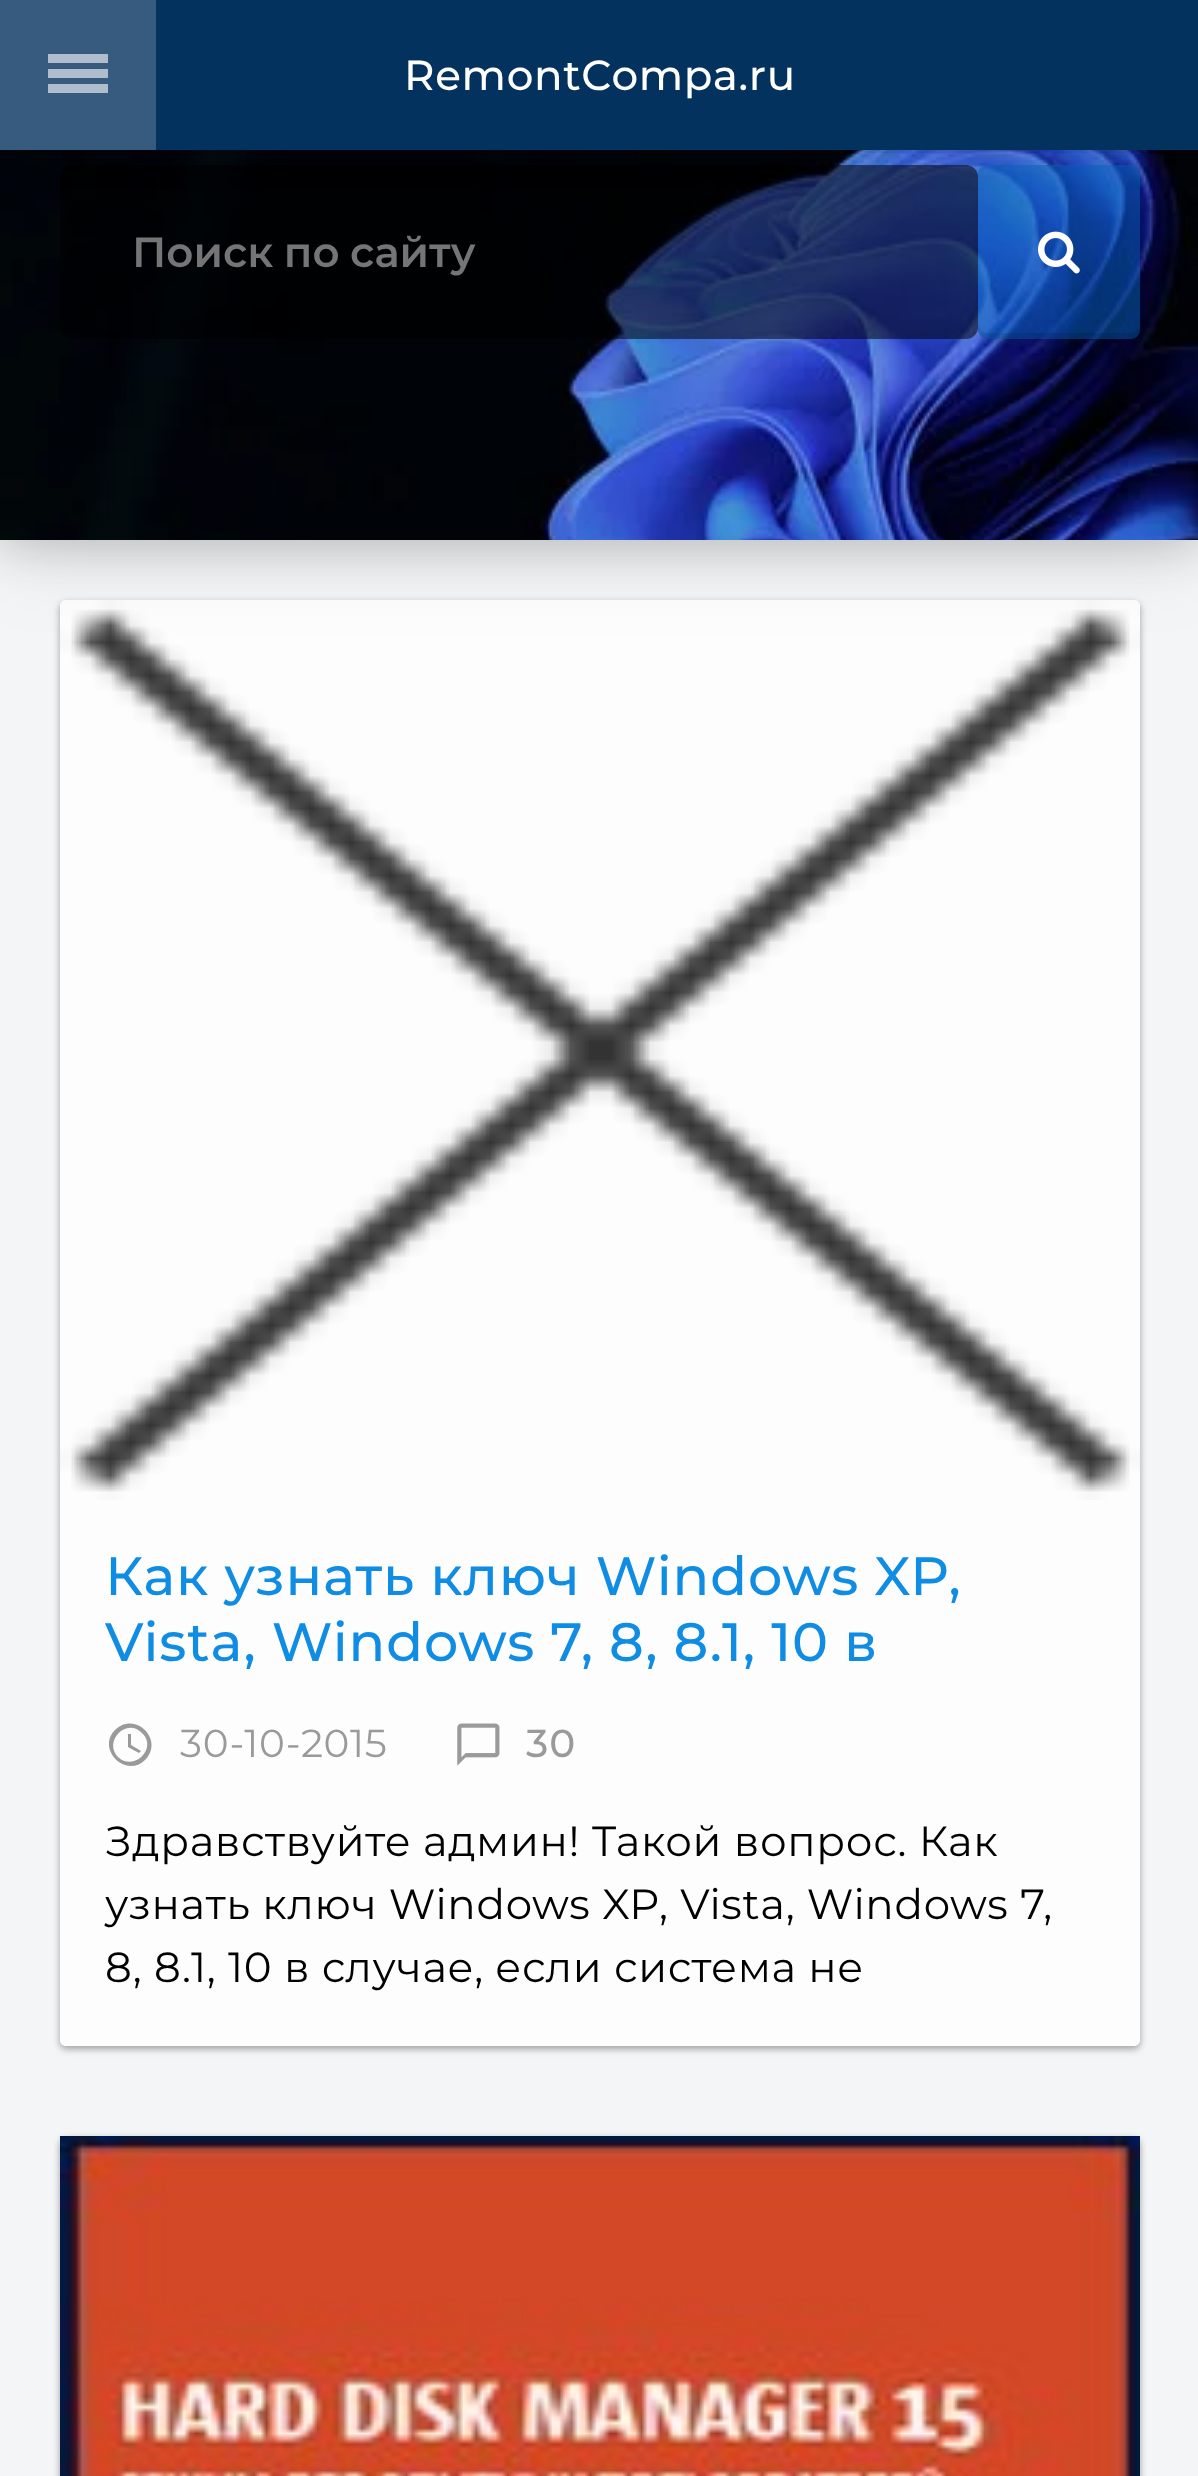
(async () => {
    const canvas = document.querySelector("canvas");
    canvas.width = 1198;
    canvas.height = 2476;
    const context = canvas.getContext("2d");
    context.miterLimit = 4;
    context.fontKerning = "normal";
    function write(s, x, y, font, color) {
        context.font = font;
        context.fillStyle = color;
        context.fillText(s, x, y);
    }
    function block(x, y, w, h, color) {
        context.fillStyle = color;
        context.fillRect(x, y, w, h);
    }
    function card(x, y, w, h, r, color) {
        context.fillStyle = color;
        context.beginPath();
        context.roundRect(x, y, w, h, r);
        context.fill();
    }
    async function photo(src, x, y, w, h) {
        const img = new Image();
        img.src = src;
        await img.decode();
        context.drawImage(img, x, y, w, h);
    }

    block(0, 0, 1198, 2476, "rgb(244, 245, 246)");
    context.save();
    context.beginPath();
    context.moveTo(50, 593);
    context.lineTo(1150, 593);
    context.lineTo(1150, 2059);
    context.lineTo(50, 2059);
    context.closePath();
    context.moveTo(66, 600);
    context.lineTo(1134, 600);
    context.bezierCurveTo(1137.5, 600, 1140, 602.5, 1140, 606);
    context.lineTo(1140, 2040);
    context.bezierCurveTo(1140, 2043.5, 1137.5, 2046, 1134, 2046);
    context.lineTo(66, 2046);
    context.bezierCurveTo(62.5, 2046, 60, 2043.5, 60, 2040);
    context.lineTo(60, 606);
    context.bezierCurveTo(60, 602.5, 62.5, 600, 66, 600);
    context.closePath();
    context.clip("evenodd");
    context.fillStyle = "rgba(0, 0, 0, 0.24)";
    context.filter = "blur(3px)";
    context.beginPath();
    context.roundRect(60, 603, 1080, 1446, 6);
    context.fill();
    context.filter = "none";
    context.restore();
    context.save();
    context.beginPath();
    context.moveTo(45, 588);
    context.lineTo(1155, 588);
    context.lineTo(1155, 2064);
    context.lineTo(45, 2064);
    context.closePath();
    context.moveTo(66, 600);
    context.lineTo(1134, 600);
    context.bezierCurveTo(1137.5, 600, 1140, 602.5, 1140, 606);
    context.lineTo(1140, 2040);
    context.bezierCurveTo(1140, 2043.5, 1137.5, 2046, 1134, 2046);
    context.lineTo(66, 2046);
    context.bezierCurveTo(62.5, 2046, 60, 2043.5, 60, 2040);
    context.lineTo(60, 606);
    context.bezierCurveTo(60, 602.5, 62.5, 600, 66, 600);
    context.closePath();
    context.clip("evenodd");
    context.fillStyle = "rgba(0, 0, 0, 0.12)";
    context.filter = "blur(4.5px)";
    context.beginPath();
    context.roundRect(60, 603, 1080, 1446, 6);
    context.fill();
    context.filter = "none";
    context.restore();
    card(60, 600, 1080, 1446, 6, "rgba(255, 255, 255, 0.8)");
    await photo("media/3.png", 60, 600, 1080, 900);
    context.fillStyle = "rgba(0, 0, 0, 0.12)";
    context.filter = "blur(45px)";
    context.beginPath();
    context.rect(0, 156, 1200, 390);
    context.fill();
    context.filter = "none";
    context.fillStyle = "rgba(0, 0, 0, 0.16)";
    context.filter = "blur(22.5px)";
    context.beginPath();
    context.rect(0, 156, 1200, 390);
    context.fill();
    context.filter = "none";
    await photo("media/1.png", 0, 150, 1198, 390);
    card(60, 165, 918, 174, 12, "rgba(0, 0, 0, 0.52)");
    context.save();
    context.beginPath();
    context.moveTo(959, 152);
    context.lineTo(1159, 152);
    context.lineTo(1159, 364);
    context.lineTo(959, 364);
    context.closePath();
    context.moveTo(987, 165);
    context.lineTo(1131, 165);
    context.bezierCurveTo(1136, 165, 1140, 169, 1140, 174);
    context.lineTo(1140, 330);
    context.bezierCurveTo(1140, 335, 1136, 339, 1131, 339);
    context.lineTo(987, 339);
    context.bezierCurveTo(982, 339, 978, 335, 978, 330);
    context.lineTo(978, 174);
    context.bezierCurveTo(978, 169, 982, 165, 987, 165);
    context.closePath();
    context.clip("evenodd");
    context.fillStyle = "rgba(0, 0, 0, 0.08)";
    context.filter = "blur(6px)";
    context.beginPath();
    context.roundRect(978, 171, 162, 174, 9);
    context.fill();
    context.filter = "none";
    context.restore();
    card(978, 165, 162, 174, 9, "rgba(6, 97, 183, 0.5)");
    context.fillStyle = "rgba(0, 0, 0, 0.05)";
    context.filter = "blur(15px)";
    context.beginPath();
    context.rect(0, 15, 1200, 150);
    context.fill();
    context.filter = "none";
    block(854, 150, 296, 3, "rgba(0, 0, 0, 0.06)");
    block(156, 0, 1042, 150, "rgb(4, 50, 95)");
    block(0, 0, 156, 150, "rgb(54, 91, 127)");
    block(48, 84, 60, 9, "rgb(175, 189, 204)");
    block(48, 69, 60, 9, "rgb(175, 189, 204)");
    block(48, 54, 60, 9, "rgb(175, 189, 204)");
    context.letterSpacing = "0.65px";
    write("RemontCompa.ru", 404, 90, "500 42px Montserrat", "rgb(255, 255, 255)");
    context.letterSpacing = "0px";
    write("Поиск по сайту", 132, 267, "600 42px Montserrat", "rgb(117, 117, 117)");
    context.fillStyle = "rgba(0, 0, 0, 0.1)";
    context.beginPath();
    context.moveTo(978, 324);
    context.lineTo(978, 330);
    context.bezierCurveTo(978, 335, 982, 339, 987, 339);
    context.lineTo(1131, 339);
    context.bezierCurveTo(1136, 339, 1140, 335, 1140, 330);
    context.lineTo(1140, 324);
    context.bezierCurveTo(1140, 329, 1136, 333, 1131, 333);
    context.lineTo(987, 333);
    context.bezierCurveTo(982, 333, 978, 329, 978, 324);
    context.closePath();
    context.fill();
    await photo("media/2.png", 1038, 231, 42, 43);
    context.letterSpacing = "0.8px";
    write("Как узнать ключ Windows XP,", 105, 1595, "500 54px Montserrat", "rgb(15, 140, 228)");
    write("Vista, Windows 7, 8, 8.1, 10 в", 105, 1661, "500 54px Montserrat", "rgb(15, 140, 228)");
    context.fillStyle = "rgb(154, 154, 154)";
    context.beginPath();
    context.moveTo(131, 1734);
    context.lineTo(131, 1745);
    context.lineTo(141, 1751);
    context.lineTo(139, 1753);
    context.lineTo(128, 1747);
    context.lineTo(128, 1734);
    context.closePath();
    context.moveTo(118, 1757);
    context.bezierCurveTo(134, 1772, 158, 1748, 142, 1733);
    context.bezierCurveTo(127, 1717, 103, 1741, 118, 1757);
    context.closePath();
    context.moveTo(115, 1730);
    context.bezierCurveTo(135, 1710, 165, 1740, 145, 1760);
    context.bezierCurveTo(126, 1779, 96, 1749, 115, 1730);
    context.closePath();
    context.fill();
    context.letterSpacing = "0.65px";
    write("30-10-2015", 180, 1757, "39px Montserrat", "rgb(154, 154, 154)");
    await photo("media/4.png", 457, 1723, 43, 43);
    context.letterSpacing = "1px";
    write("30", 526, 1757, "500 39px Montserrat", "rgb(154, 154, 154)");
    context.letterSpacing = "0.65px";
    write("Здравствуйте админ! Такой вопрос. Как", 105, 1856, "42px Montserrat", "rgb(0, 0, 0)");
    write("узнать ключ Windows XP, Vista, Windows 7,", 105, 1919, "42px Montserrat", "rgb(0, 0, 0)");
    write("8, 8.1, 10 в случае, если система не", 105, 1982, "42px Montserrat", "rgb(0, 0, 0)");
    context.fillStyle = "rgba(0, 0, 0, 0.24)";
    context.filter = "blur(3px)";
    context.beginPath();
    context.roundRect(60, 2139, 1080, 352, 6);
    context.fill();
    context.filter = "none";
    context.fillStyle = "rgba(0, 0, 0, 0.12)";
    context.filter = "blur(4.5px)";
    context.beginPath();
    context.roundRect(60, 2139, 1080, 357, 6);
    context.fill();
    context.filter = "none";
    await photo("media/5.png", 60, 2136, 1080, 340);
})();
